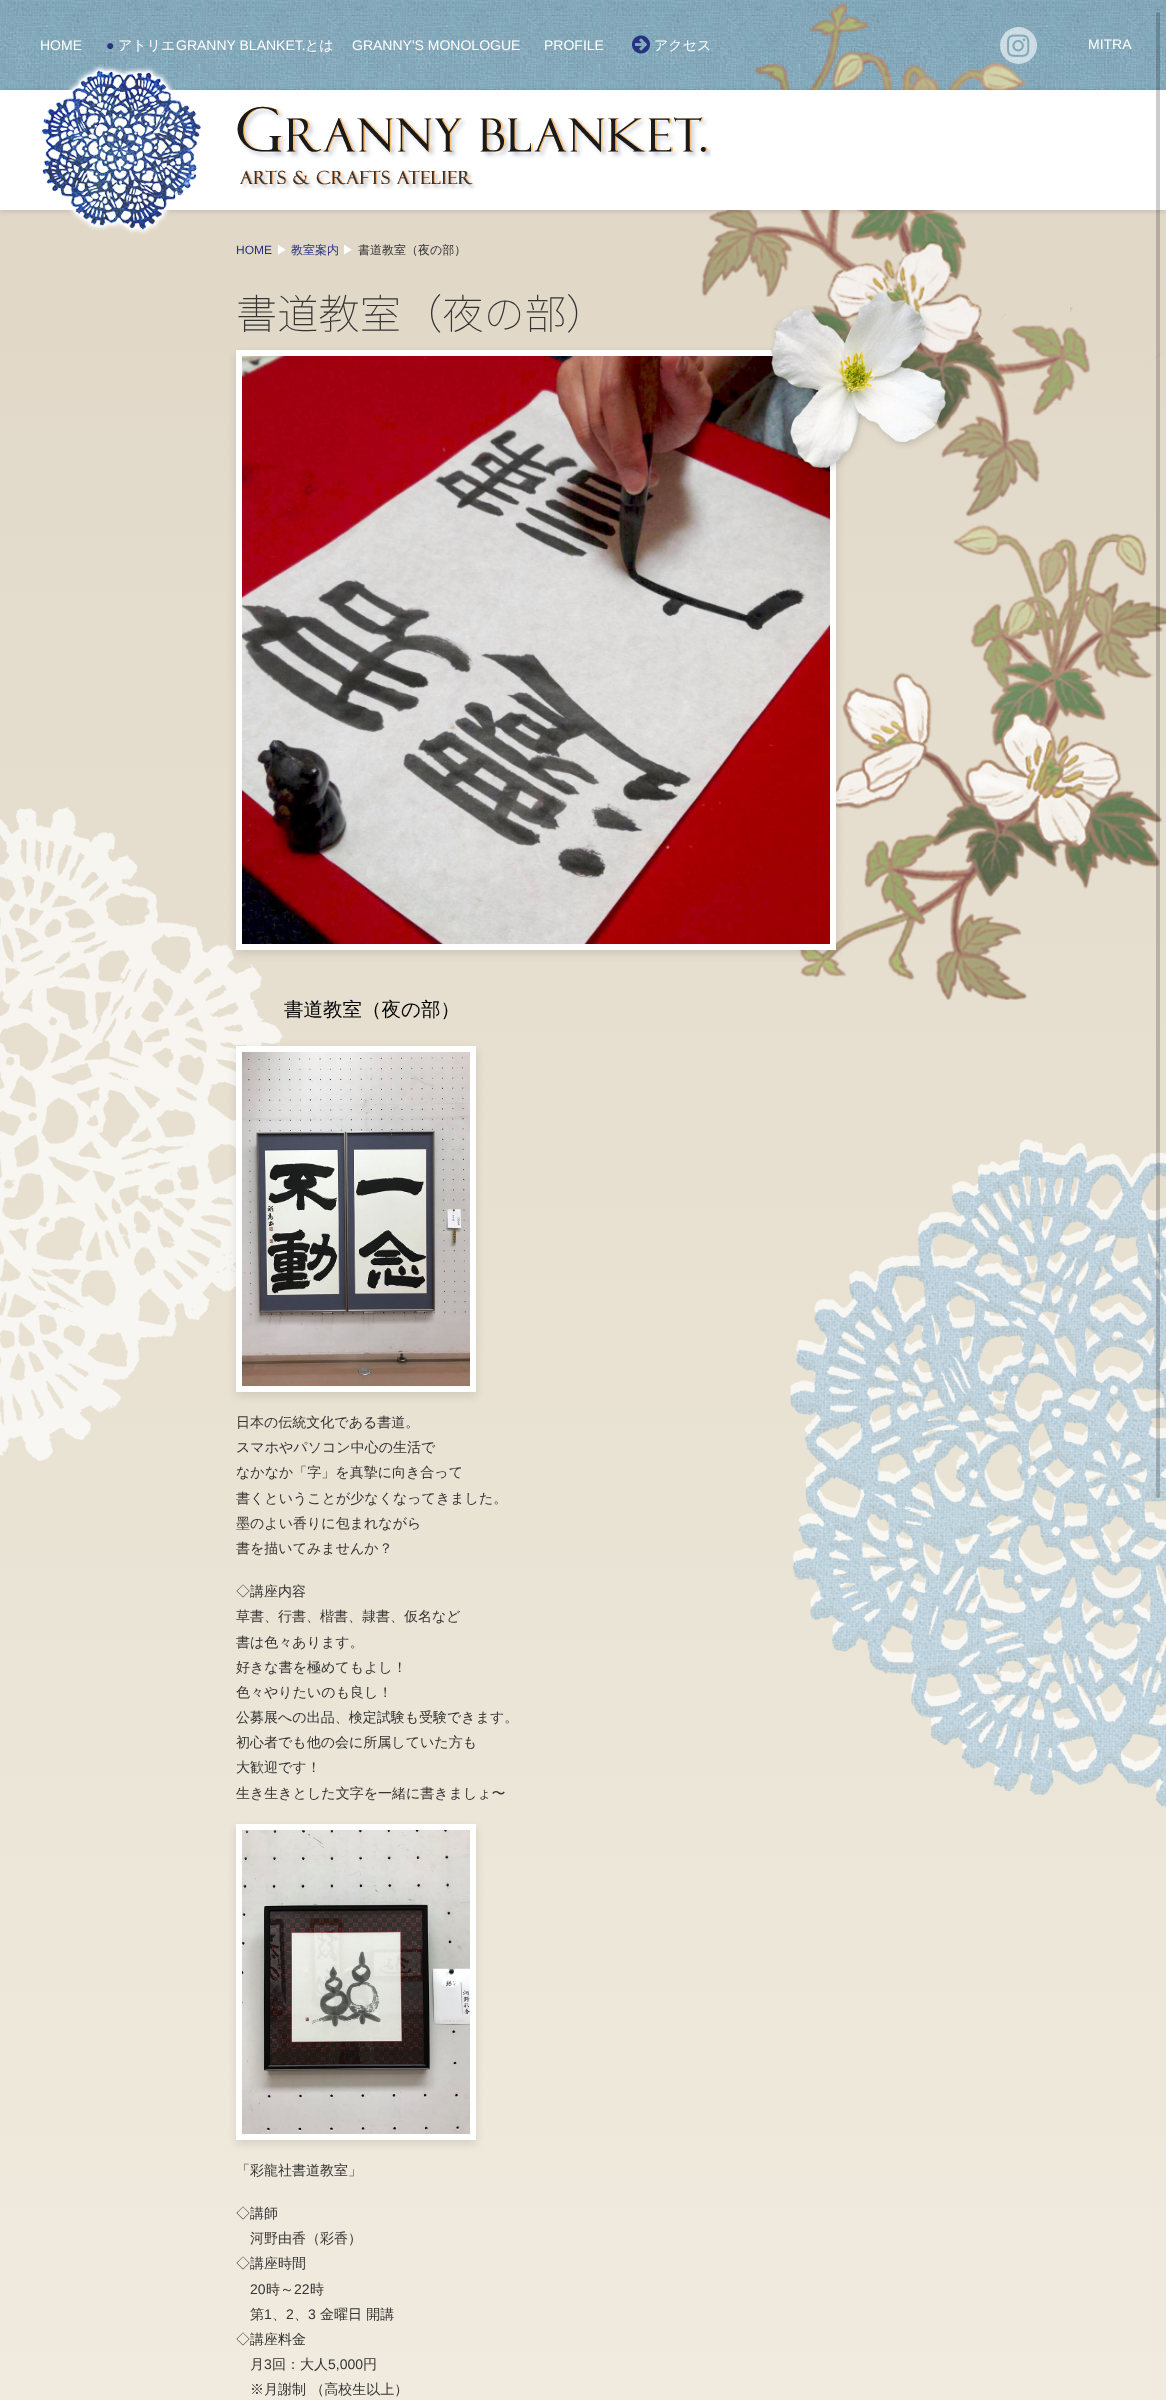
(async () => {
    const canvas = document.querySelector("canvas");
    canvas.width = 1166;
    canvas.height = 2400;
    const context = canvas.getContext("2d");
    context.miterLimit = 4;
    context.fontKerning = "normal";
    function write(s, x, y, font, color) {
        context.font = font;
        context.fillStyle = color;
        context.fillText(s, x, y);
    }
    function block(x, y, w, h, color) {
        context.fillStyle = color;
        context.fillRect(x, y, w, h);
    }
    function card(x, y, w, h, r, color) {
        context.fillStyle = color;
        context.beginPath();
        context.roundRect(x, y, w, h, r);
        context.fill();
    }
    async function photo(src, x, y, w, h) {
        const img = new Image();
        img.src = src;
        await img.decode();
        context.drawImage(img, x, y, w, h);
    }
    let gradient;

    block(0, 0, 1166, 2400, "rgb(255, 255, 255)");
    gradient = context.createLinearGradient(583, 0, 583, 2400);
    gradient.addColorStop(0, "rgb(223, 214, 197)");
    gradient.addColorStop(1, "rgb(240, 235, 222)");
    context.fillStyle = gradient;
    context.fillRect(0, 210, 1166, 2190);
    await photo("media/1.png", 0, 0, 1166, 90);
    await photo("media/2.png", 754, 0, 273, 90);
    write("HOME", 40, 50, "14px Liberation Sans", "rgb(255, 255, 255)");
    write("●", 106, 50, "14px Liberation Sans", "rgb(38, 49, 128)");
    write("アトリエ", 118, 50, "500 14px WenQuanYi Zen Hei", "rgb(255, 255, 255)");
    write("GRANNY BLANKET.", 176, 50, "14px Liberation Sans", "rgb(255, 255, 255)");
    write("とは", 305, 50, "500 14px WenQuanYi Zen Hei", "rgb(255, 255, 255)");
    write("GRANNY'S MONOLOGUE", 352, 50, "14px Liberation Sans", "rgb(255, 255, 255)");
    write("PROFILE", 544, 50, "14px Liberation Sans", "rgb(255, 255, 255)");
    await photo("media/3.png", 632, 35, 18, 19);
    write("アクセス", 654, 50, "500 14px WenQuanYi Zen Hei", "rgb(255, 255, 255)");
    context.fillStyle = "rgba(255, 255, 255, 0.6)";
    context.beginPath();
    context.arc(1018.5, 45.5, 18.5, 0, Math.PI * 2);
    context.fill();
    await photo("media/4.png", 1007, 34, 23, 23);
    write("MITRA", 1088, 49, "14px Liberation Sans", "rgb(255, 255, 255)");
    await photo("media/7.png", 701, 210, 465, 790);
    context.fillStyle = "rgba(38, 10, 0, 0.15)";
    context.filter = "blur(2.5px)";
    context.beginPath();
    context.rect(0, 91, 1166, 120);
    context.fill();
    context.filter = "none";
    block(0, 90, 1166, 120, "rgb(255, 255, 255)");
    await photo("media/5.png", 41, 65, 160, 170);
    await photo("media/6.png", 237, 106, 474, 84);
    write("HOME", 236, 254, "12px Liberation Sans", "rgb(38, 49, 128)");
    write("▶", 276, 254, "500 12px WenQuanYi Zen Hei", "rgb(255, 255, 255)");
    write("教室案内", 291, 254, "500 12px WenQuanYi Zen Hei", "rgb(38, 49, 128)");
    write("▶", 342, 254, "500 12px WenQuanYi Zen Hei", "rgb(255, 255, 255)");
    write("書道教室（夜の部）", 358, 254, "500 12px WenQuanYi Zen Hei", "rgb(51, 51, 51)");
    write("書道教室（夜の部）", 236, 329, "100 41.25px Noto Sans JP", "rgb(51, 51, 51)");
    await photo("media/12.png", 0, 807, 283, 654);
    context.fillStyle = "rgba(0, 0, 0, 0.1)";
    context.filter = "blur(4px)";
    context.beginPath();
    context.rect(236, 354, 600, 600);
    context.fill();
    context.filter = "none";
    context.strokeStyle = "rgb(255, 255, 255)";
    context.lineWidth = 6;
    context.strokeRect(239, 353, 594, 594);
    await photo("media/8.png", 242, 356, 588, 588);
    await photo("media/9.png", 770, 292, 179, 180);
    write("書道教室（夜の部）", 284, 1016, "500 19.5px WenQuanYi Zen Hei", "rgb(0, 0, 0)");
    context.fillStyle = "rgba(0, 0, 0, 0.1)";
    context.filter = "blur(4px)";
    context.beginPath();
    context.rect(236, 1050, 240, 346);
    context.fill();
    context.filter = "none";
    context.strokeRect(239, 1049, 234, 340);
    await photo("media/10.png", 242, 1052, 228, 334);
    write("日本の伝統文化である書道。", 236, 1427, "500 14px WenQuanYi Zen Hei", "rgb(51, 51, 51)");
    write("スマホやパソコン中心の生活で", 236, 1452, "500 14px WenQuanYi Zen Hei", "rgb(51, 51, 51)");
    write("なかなか「字」を真摯に向き合って", 236, 1477, "500 14px WenQuanYi Zen Hei", "rgb(51, 51, 51)");
    write("書くということが少なくなってきました。", 236, 1503, "500 14px WenQuanYi Zen Hei", "rgb(51, 51, 51)");
    write("墨のよい香りに包まれながら", 236, 1528, "500 14px WenQuanYi Zen Hei", "rgb(51, 51, 51)");
    write("書を描いてみませんか？", 236, 1553, "500 14px WenQuanYi Zen Hei", "rgb(51, 51, 51)");
    write("◇講座内容", 236, 1596, "500 14px WenQuanYi Zen Hei", "rgb(51, 51, 51)");
    write("草書、行書、楷書、隷書、仮名など", 236, 1621, "500 14px WenQuanYi Zen Hei", "rgb(51, 51, 51)");
    write("書は色々あります。", 236, 1647, "500 14px WenQuanYi Zen Hei", "rgb(51, 51, 51)");
    write("好きな書を極めてもよし！", 236, 1672, "500 14px WenQuanYi Zen Hei", "rgb(51, 51, 51)");
    write("色々やりたいのも良し！", 236, 1697, "500 14px WenQuanYi Zen Hei", "rgb(51, 51, 51)");
    write("公募展への出品、検定試験も受験できます。", 236, 1722, "500 14px WenQuanYi Zen Hei", "rgb(51, 51, 51)");
    write("初心者でも他の会に所属していた方も", 236, 1747, "500 14px WenQuanYi Zen Hei", "rgb(51, 51, 51)");
    write("大歓迎です！", 236, 1772, "500 14px WenQuanYi Zen Hei", "rgb(51, 51, 51)");
    write("生き生きとした文字を一緒に書きましょ〜", 236, 1798, "500 14px WenQuanYi Zen Hei", "rgb(51, 51, 51)");
    context.fillStyle = "rgba(0, 0, 0, 0.1)";
    context.filter = "blur(4px)";
    context.beginPath();
    context.rect(236, 1828, 240, 316);
    context.fill();
    context.filter = "none";
    context.strokeRect(239, 1827, 234, 310);
    await photo("media/11.png", 242, 1830, 228, 304);
    write("「彩龍社書道教室」", 236, 2175, "500 14px WenQuanYi Zen Hei", "rgb(51, 51, 51)");
    write("◇講師", 236, 2218, "500 14px WenQuanYi Zen Hei", "rgb(51, 51, 51)");
    write("河野由香（彩香）", 250, 2243, "500 14px WenQuanYi Zen Hei", "rgb(51, 51, 51)");
    write("◇講座時間", 236, 2268, "500 14px WenQuanYi Zen Hei", "rgb(51, 51, 51)");
    write("20", 250, 2294, "14px Liberation Sans", "rgb(51, 51, 51)");
    write("時～", 266, 2294, "500 14px WenQuanYi Zen Hei", "rgb(51, 51, 51)");
    write("22", 294, 2294, "14px Liberation Sans", "rgb(51, 51, 51)");
    write("時", 310, 2294, "500 14px WenQuanYi Zen Hei", "rgb(51, 51, 51)");
    write("第", 250, 2319, "500 14px WenQuanYi Zen Hei", "rgb(51, 51, 51)");
    write("1", 264, 2319, "14px Liberation Sans", "rgb(51, 51, 51)");
    write("、", 272, 2319, "500 14px WenQuanYi Zen Hei", "rgb(51, 51, 51)");
    write("2", 286, 2319, "14px Liberation Sans", "rgb(51, 51, 51)");
    write("、", 294, 2319, "500 14px WenQuanYi Zen Hei", "rgb(51, 51, 51)");
    write("3", 308, 2319, "14px Liberation Sans", "rgb(51, 51, 51)");
    write("金曜日 開講", 320, 2319, "500 14px WenQuanYi Zen Hei", "rgb(51, 51, 51)");
    write("◇講座料金", 236, 2344, "500 14px WenQuanYi Zen Hei", "rgb(51, 51, 51)");
    write("月", 250, 2369, "500 14px WenQuanYi Zen Hei", "rgb(51, 51, 51)");
    write("3", 264, 2369, "14px Liberation Sans", "rgb(51, 51, 51)");
    write("回：大人", 272, 2369, "500 14px WenQuanYi Zen Hei", "rgb(51, 51, 51)");
    write("5,000", 328, 2369, "14px Liberation Sans", "rgb(51, 51, 51)");
    write("円", 363, 2369, "500 14px WenQuanYi Zen Hei", "rgb(51, 51, 51)");
    write("※月謝制 （高校生以上）", 250, 2394, "500 14px WenQuanYi Zen Hei", "rgb(51, 51, 51)");
    await photo("media/13.png", 790, 1139, 376, 658);
    await photo("media/14.png", 786, 1149, 380, 658);
    card(1156, 12, 4, 1486, 2, "rgba(0, 0, 0, 0.2)");
})();
